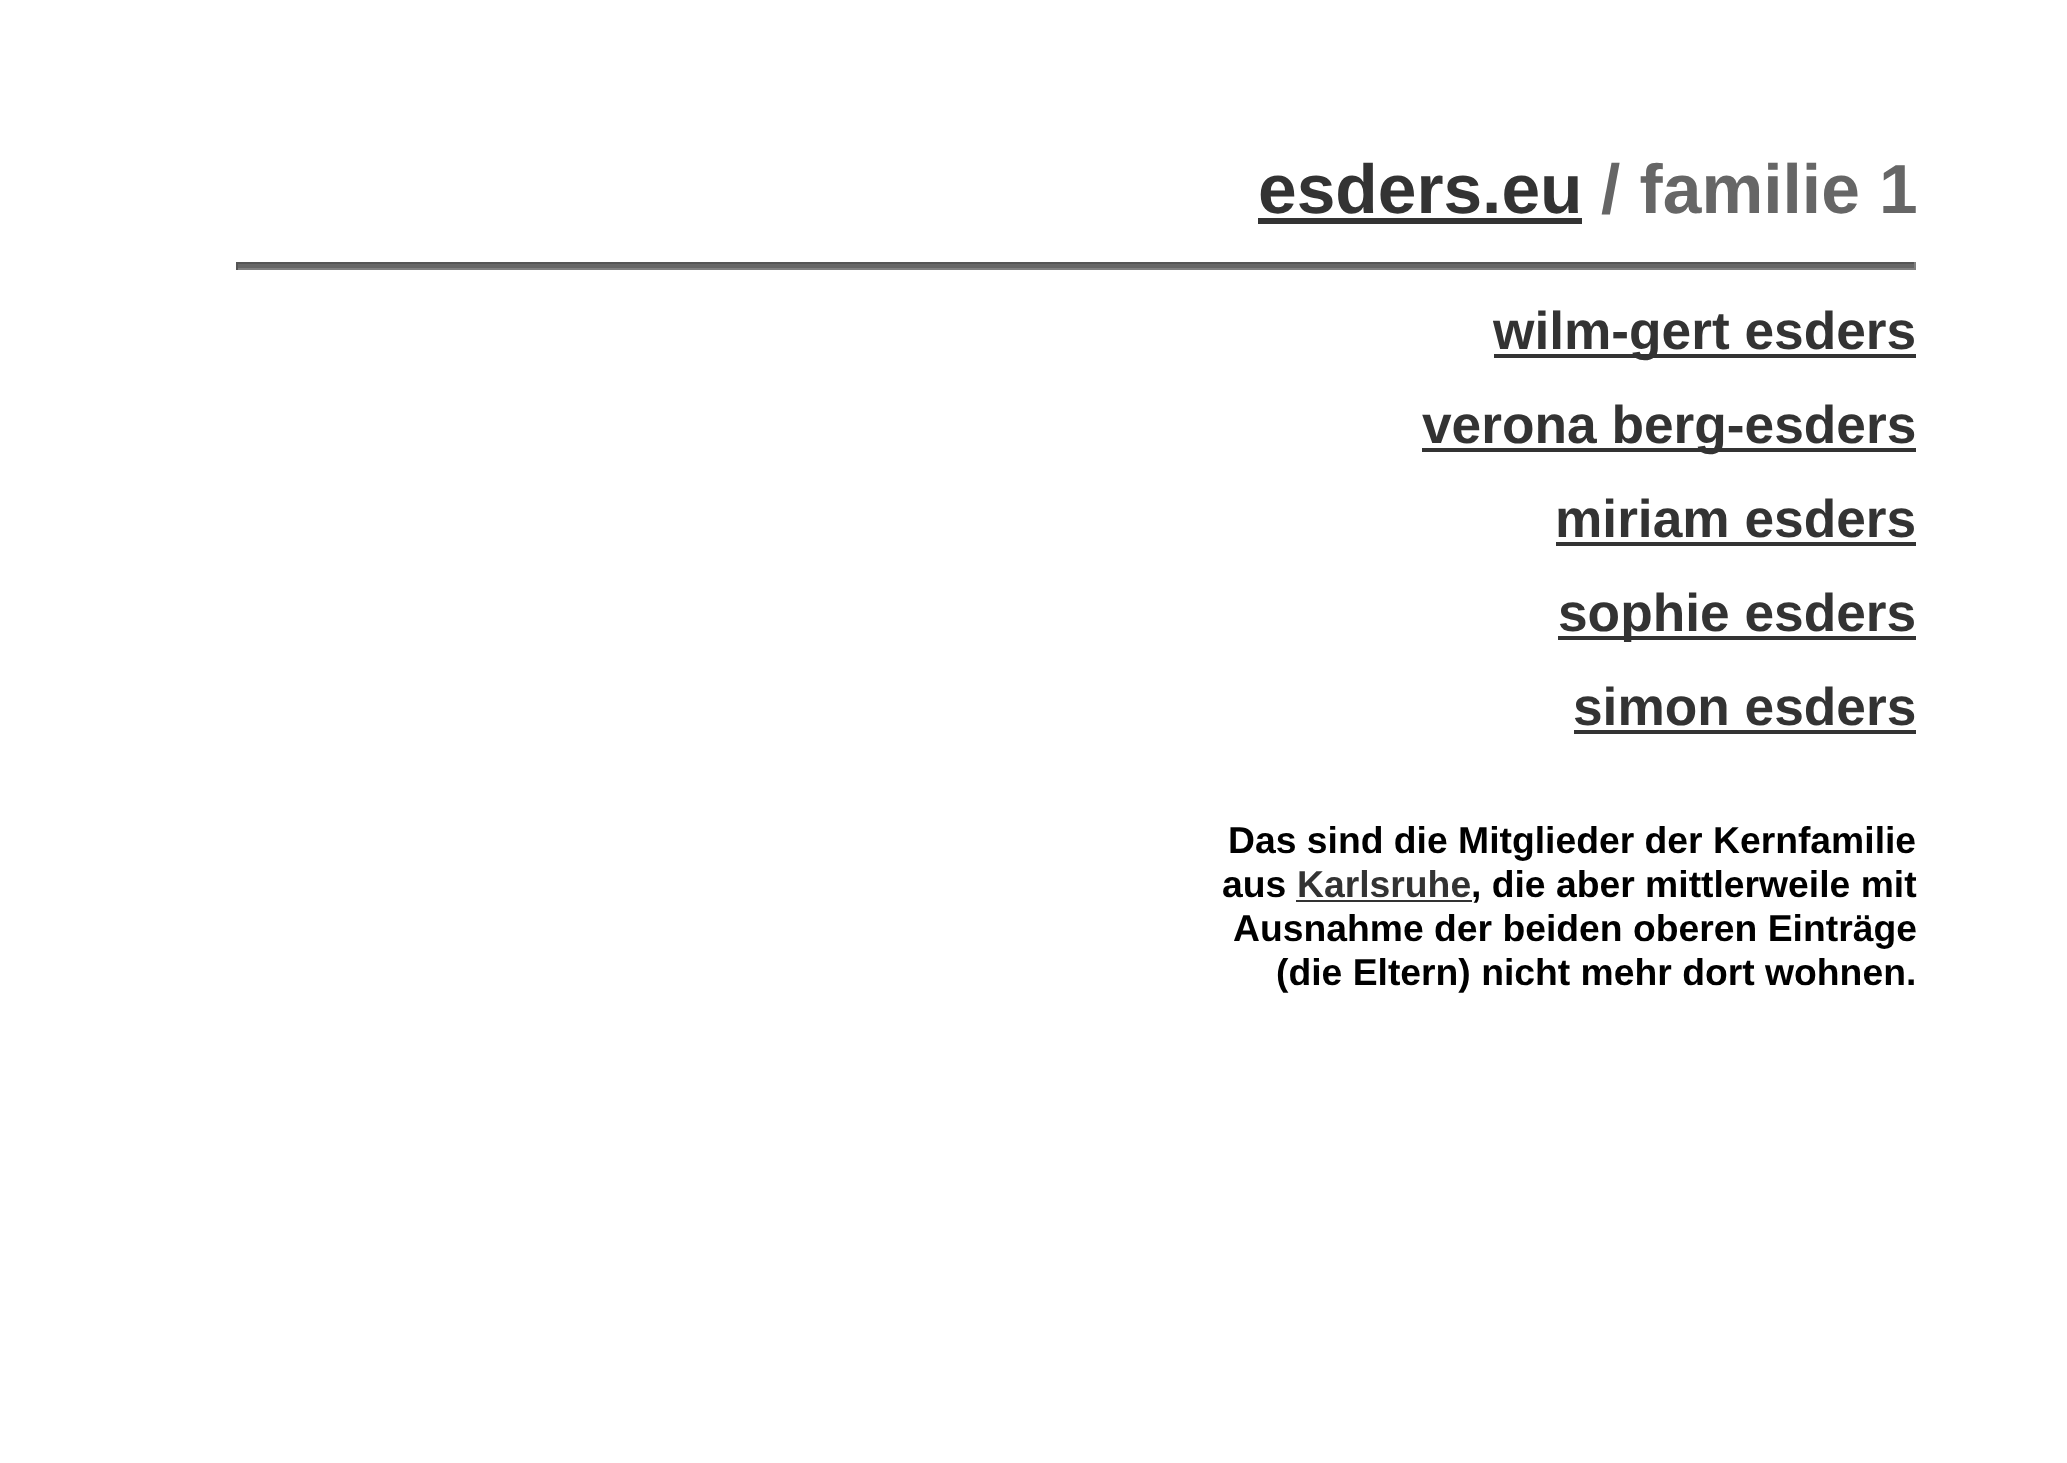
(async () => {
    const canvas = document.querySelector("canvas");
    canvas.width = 2067;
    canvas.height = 1463;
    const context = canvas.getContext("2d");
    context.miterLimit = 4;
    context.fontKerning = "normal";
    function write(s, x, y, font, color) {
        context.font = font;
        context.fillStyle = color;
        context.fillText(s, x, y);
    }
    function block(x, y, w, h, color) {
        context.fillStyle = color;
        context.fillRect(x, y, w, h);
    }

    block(0, 0, 2067, 1463, "rgb(255, 255, 255)");
    write("esders.eu", 1258, 213, "bold 69.5px Liberation Sans", "rgb(51, 51, 51)");
    block(1258, 218, 324, 6, "rgb(51, 51, 51)");
    write("/ familie 1", 1601, 213, "bold 69.5px Liberation Sans", "rgb(102, 102, 102)");
    block(236, 264, 1680, 4, "rgb(102, 102, 102)");
    block(236, 262, 1680, 2, "rgb(85, 85, 85)");
    block(1914, 262, 2, 8, "rgb(128, 128, 128)");
    block(236, 268, 1680, 2, "rgb(128, 128, 128)");
    block(236, 262, 2, 8, "rgb(85, 85, 85)");
    block(1494, 354, 422, 4, "rgb(51, 51, 51)");
    write("wilm-gert esders", 1493, 349, "bold 53.25px Liberation Sans", "rgb(51, 51, 51)");
    block(1422, 448, 494, 4, "rgb(51, 51, 51)");
    write("verona berg-esders", 1422, 443, "bold 53.25px Liberation Sans", "rgb(51, 51, 51)");
    write("miriam esders", 1555, 537, "bold 53.25px Liberation Sans", "rgb(51, 51, 51)");
    block(1556, 542, 360, 4, "rgb(51, 51, 51)");
    block(1558, 636, 358, 4, "rgb(51, 51, 51)");
    write("sophie esders", 1558, 631, "bold 53.25px Liberation Sans", "rgb(51, 51, 51)");
    write("simon esders", 1573, 725, "bold 53.25px Liberation Sans", "rgb(51, 51, 51)");
    block(1574, 730, 342, 4, "rgb(51, 51, 51)");
    write("Das sind die Mitglieder der Kernfamilie", 1228, 853, "bold 37.3px Liberation Sans", "rgb(0, 0, 0)");
    write("aus", 1222, 897, "bold 37.3px Liberation Sans", "rgb(0, 0, 0)");
    write("Karlsruhe", 1297, 897, "bold 37.3px Liberation Sans", "rgb(51, 51, 51)");
    block(1296, 900, 176, 2, "rgb(51, 51, 51)");
    write(", die aber mittlerweile mit", 1471, 897, "bold 37.3px Liberation Sans", "rgb(0, 0, 0)");
    write("Ausnahme der beiden oberen Einträge", 1233, 941, "bold 37.3px Liberation Sans", "rgb(0, 0, 0)");
    write("(die Eltern) nicht mehr dort wohnen.", 1276, 985, "bold 37.3px Liberation Sans", "rgb(0, 0, 0)");
})();
